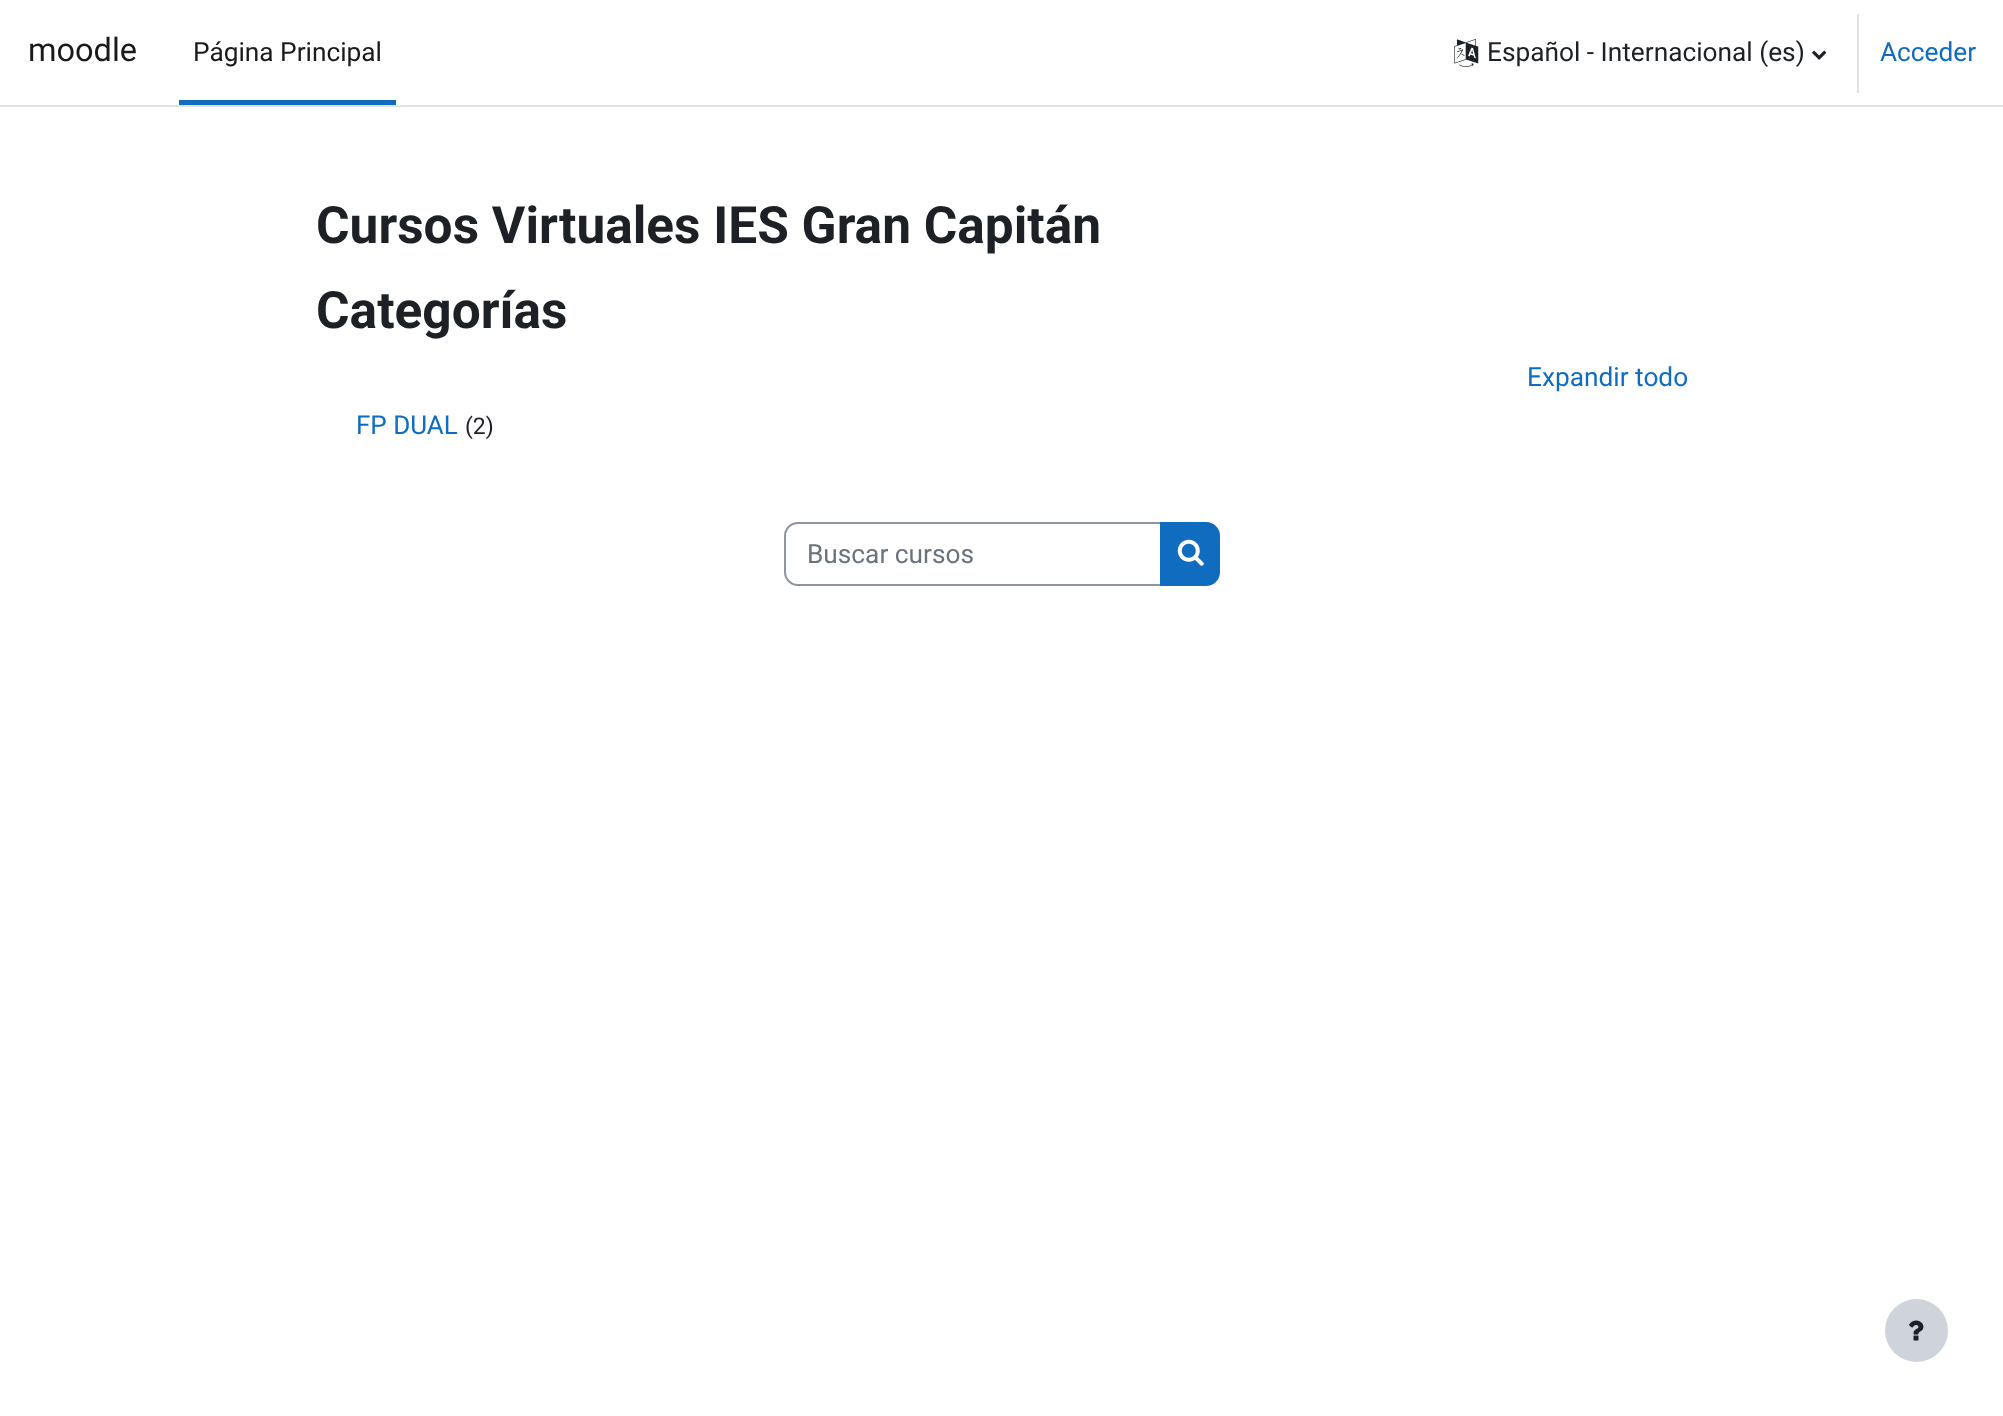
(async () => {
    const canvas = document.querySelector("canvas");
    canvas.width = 2003;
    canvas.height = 1416;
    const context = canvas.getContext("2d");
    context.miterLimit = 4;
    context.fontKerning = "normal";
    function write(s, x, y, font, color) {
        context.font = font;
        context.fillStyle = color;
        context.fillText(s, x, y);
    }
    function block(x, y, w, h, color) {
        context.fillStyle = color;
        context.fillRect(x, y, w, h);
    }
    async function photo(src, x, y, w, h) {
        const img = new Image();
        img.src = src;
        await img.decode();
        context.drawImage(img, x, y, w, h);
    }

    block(0, 0, 2003, 1416, "rgb(255, 255, 255)");
    block(0, 105, 2003, 2, "rgb(222, 226, 230)");
    write("moodle", 28, 61, "32.5px Roboto", "rgb(26, 26, 26)");
    block(179, 100, 217, 5, "rgb(15, 108, 191)");
    write("Página Principal", 193, 61, "26.25px Roboto", "rgb(26, 26, 26)");
    await photo("media/1.png", 1454, 39, 25, 28);
    write("Español - Internacional (es)", 1487, 61, "26.25px Roboto", "rgb(29, 33, 37)");
    await photo("media/2.png", 1812, 50, 15, 10);
    block(1857, 14, 2, 79, "rgb(222, 226, 230)");
    write("Acceder", 1880, 61, "26.25px Roboto", "rgb(15, 108, 191)");
    write("Cursos Virtuales IES Gran Capitán", 316, 243, "bold 51.4px Roboto", "rgb(29, 33, 37)");
    write("Categorías", 316, 328, "bold 51.4px Roboto", "rgb(29, 33, 37)");
    write("Expandir todo", 1527, 386, "26.25px Roboto", "rgb(15, 108, 191)");
    write("FP DUAL", 356, 434, "26px Roboto", "rgb(15, 108, 191)");
    write("(2)", 465, 434, "23px Roboto", "rgb(29, 33, 37)");
    context.beginPath();
    context.roundRect(785, 523, 376, 62, [13, 0, 0, 13]);
    context.strokeStyle = "rgb(143, 149, 158)";
    context.lineWidth = 2;
    context.stroke();
    write("Buscar cursos", 807, 563, "26.25px Roboto", "rgb(106, 115, 123)");
    context.fillStyle = "rgb(15, 108, 191)";
    context.beginPath();
    context.roundRect(1161, 523, 58, 62, [0, 13, 13, 0]);
    context.fill();
    context.strokeStyle = "rgb(15, 108, 191)";
    context.stroke();
    await photo("media/3.png", 1177, 539, 27, 27);
    context.fillStyle = "rgb(206, 212, 218)";
    context.beginPath();
    context.arc(1916.5, 1330.5, 31.5, 0, Math.PI * 2);
    context.fill();
    await photo("media/4.png", 1909, 1320, 15, 21);
})();
